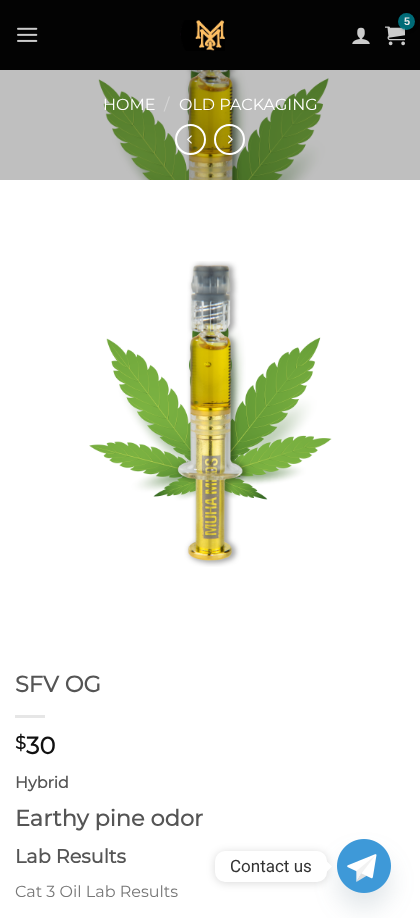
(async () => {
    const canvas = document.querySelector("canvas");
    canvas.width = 420;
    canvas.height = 918;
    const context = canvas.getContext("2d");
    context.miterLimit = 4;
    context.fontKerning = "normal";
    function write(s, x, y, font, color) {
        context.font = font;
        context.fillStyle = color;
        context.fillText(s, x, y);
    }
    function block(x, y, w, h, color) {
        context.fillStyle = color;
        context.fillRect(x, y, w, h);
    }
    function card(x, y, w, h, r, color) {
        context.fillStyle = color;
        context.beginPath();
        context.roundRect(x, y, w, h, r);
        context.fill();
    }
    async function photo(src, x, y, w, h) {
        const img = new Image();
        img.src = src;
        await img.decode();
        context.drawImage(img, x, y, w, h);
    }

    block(0, 0, 420, 918, "rgb(255, 255, 255)");
    block(0, 0, 420, 70, "rgb(3, 3, 3)");
    await photo("media/1.png", 17, 27, 21, 15);
    await photo("media/2.png", 180, 20, 45, 31);
    await photo("media/3.png", 385, 26, 20, 20);
    context.save();
    context.beginPath();
    context.moveTo(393, 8);
    context.lineTo(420, 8);
    context.lineTo(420, 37);
    context.lineTo(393, 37);
    context.closePath();
    context.moveTo(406.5, 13);
    context.bezierCurveTo(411, 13, 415, 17, 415, 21.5);
    context.bezierCurveTo(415, 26, 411, 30, 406.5, 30);
    context.bezierCurveTo(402, 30, 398, 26, 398, 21.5);
    context.bezierCurveTo(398, 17, 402, 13, 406.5, 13);
    context.closePath();
    context.clip("evenodd");
    context.fillStyle = "rgba(0, 0, 0, 0.27)";
    context.filter = "blur(1.5px)";
    context.beginPath();
    context.roundRect(399, 14, 17, 17, 8.5);
    context.fill();
    context.filter = "none";
    context.restore();
    context.fillStyle = "rgba(0, 119, 132, 0.9)";
    context.beginPath();
    context.arc(406.5, 21.5, 8.5, 0, Math.PI * 2);
    context.fill();
    write("5", 404, 25, "bold 11px Liberation Sans", "rgb(230, 230, 230)");
    await photo("media/4.png", 352, 27, 18, 17);
    await photo("media/5.png", 0, 70, 420, 110);
    write("HOME", 103, 110, "100 16px Montserrat", "rgb(255, 255, 255)");
    write("/", 164, 110, "100 16px Montserrat", "rgb(214, 214, 214)");
    write("OLD PACKAGING", 179, 110, "100 16px Montserrat", "rgb(255, 255, 255)");
    context.beginPath();
    context.arc(190.5, 139.5, 14.5, 0, Math.PI * 2);
    context.strokeStyle = "rgb(255, 255, 255)";
    context.lineWidth = 2;
    context.stroke();
    await photo("media/6.png", 187, 135, 5, 9);
    context.beginPath();
    context.arc(229.5, 139.5, 14.5, 0, Math.PI * 2);
    context.stroke();
    await photo("media/7.png", 228, 135, 5, 9);
    await photo("media/8.png", 89, 261, 243, 306);
    write("SFV OG", 15, 692, "bold 22.5px Montserrat", "rgb(85, 85, 85)");
    block(15, 715, 30, 3, "rgb(230, 230, 230)");
    write("$", 15, 749, "bold 18px Montserrat", "rgb(17, 17, 17)");
    write("30", 26, 754, "bold 24px Montserrat", "rgb(17, 17, 17)");
    write("Hybrid", 15, 788, "bold 16px Montserrat", "rgb(85, 85, 85)");
    write("Earthy pine odor", 15, 826, "bold 22.5px Montserrat", "rgb(85, 85, 85)");
    write("Lab Results", 15, 863, "bold 19.25px Montserrat", "rgb(85, 85, 85)");
    write("Cat 3 Oil Lab Results", 15, 897, "100 16px Montserrat", "rgb(119, 119, 119)");
    context.fillStyle = "rgba(73, 104, 126, 0.16)";
    context.filter = "blur(12px)";
    context.beginPath();
    context.roundRect(337, 855, 54, 54, 27);
    context.fill();
    context.filter = "none";
    await photo("media/9.png", 337, 839, 54, 54);
    context.fillStyle = "rgba(0, 0, 0, 0.15)";
    context.filter = "blur(4px)";
    context.beginPath();
    context.roundRect(215, 852, 112, 31, 10);
    context.fill();
    context.filter = "none";
    card(215, 851, 112, 31, 10, "rgb(255, 255, 255)");
    write("Contact us", 230, 872, "17px Roboto", "rgb(51, 51, 51)");
    context.fillStyle = "rgb(255, 255, 255)";
    context.beginPath();
    context.moveTo(327, 871.5);
    context.lineTo(327, 861.5);
    context.lineTo(332, 866.5);
    context.closePath();
    context.fill();
})();
